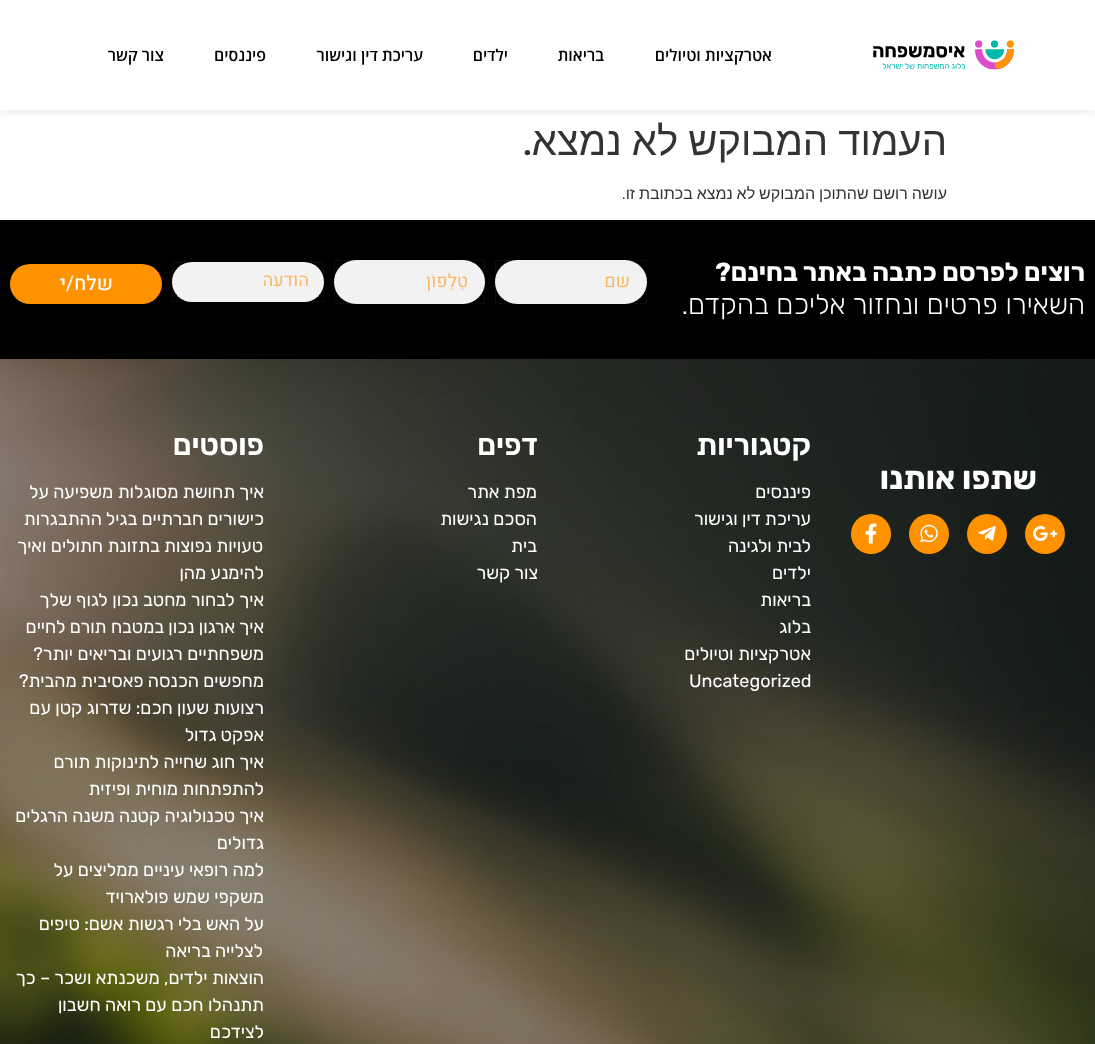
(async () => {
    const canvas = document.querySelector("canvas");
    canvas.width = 1095;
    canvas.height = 1044;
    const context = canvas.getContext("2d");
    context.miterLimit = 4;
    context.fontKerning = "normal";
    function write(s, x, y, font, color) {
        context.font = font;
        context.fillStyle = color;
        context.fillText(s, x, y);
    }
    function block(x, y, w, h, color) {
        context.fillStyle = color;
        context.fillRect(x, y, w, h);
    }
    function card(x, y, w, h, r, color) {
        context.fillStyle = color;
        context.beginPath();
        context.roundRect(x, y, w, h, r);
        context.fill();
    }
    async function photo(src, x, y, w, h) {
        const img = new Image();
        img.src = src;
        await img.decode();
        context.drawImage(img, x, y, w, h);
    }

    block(0, 0, 1095, 1044, "rgb(255, 255, 255)");
    context.save();
    context.beginPath();
    context.rect(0, 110, 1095, 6);
    context.clip();
    context.fillStyle = "rgba(0, 0, 0, 0.1)";
    context.filter = "blur(5.5px)";
    context.beginPath();
    context.rect(0, 1, 1095, 110);
    context.fill();
    context.filter = "none";
    context.restore();
    await photo("media/1.png", 873, 40, 141, 30);
    context.direction = "rtl";
    write("אטרקציות וטיולים", 772, 61, "600 16px Open Sans", "rgb(0, 0, 0)");
    write("בריאות", 604, 61, "600 16px Open Sans", "rgb(0, 0, 0)");
    write("ילדים", 508, 61, "600 16px Open Sans", "rgb(0, 0, 0)");
    write("עריכת דין וגישור", 423, 61, "600 16px Open Sans", "rgb(0, 0, 0)");
    write("פיננסים", 266, 61, "600 16px Open Sans", "rgb(0, 0, 0)");
    write("צור קשר", 164, 61, "600 16px Open Sans", "rgb(0, 0, 0)");
    context.wordSpacing = "-1px";
    write("העמוד המבוקש לא נמצא", 947, 155, "40px Liberation Sans", "rgb(51, 51, 51)");
    context.wordSpacing = "0px";
    write(".", 533, 155, "500 40px Roboto", "rgb(51, 51, 51)");
    context.wordSpacing = "-0.5px";
    write("עושה רושם שהתוכן המבוקש לא נמצא בכתובת זו", 947, 199, "16px Liberation Sans", "rgb(51, 51, 51)");
    context.wordSpacing = "0px";
    write(".", 626, 199, "16px Roboto", "rgb(51, 51, 51)");
    block(0, 220, 1095, 139, "rgb(0, 0, 0)");
    write("רוצים לפרסם כתבה באתר בחינם?", 1085, 281, "bold 26px Rubik", "rgb(255, 255, 255)");
    context.wordSpacing = "0.5px";
    write("השאירו פרטים ונחזור אליכם בהקדם.", 1085, 314, "300 28px Rubik", "rgb(255, 255, 255)");
    card(495, 260, 152, 44, 22, "rgb(242, 242, 243)");
    context.strokeStyle = "rgba(242, 242, 243, 0.05)";
    context.strokeRect(495.5, 260.5, 151, 43);
    context.wordSpacing = "0px";
    write("שם", 630, 287, "18px Heebo", "rgb(250, 184, 97)");
    card(334, 260, 151, 44, 22, "rgb(242, 242, 243)");
    context.strokeRect(334.5, 260.5, 150, 43);
    write("טֵלֵפוֹן", 468, 287, "18px Heebo", "rgb(250, 184, 97)");
    card(172, 262, 152, 40, 20, "rgb(242, 242, 243)");
    context.strokeRect(172.5, 262.5, 151, 39);
    write("הודעה", 309, 286, "18px Heebo", "rgb(250, 184, 97)");
    card(10, 264, 152, 40, 20, "rgb(255, 146, 0)");
    write("שלח/י", 113, 290, "500 20px Heebo", "rgb(255, 255, 255)");
    await photo("media/2.png", 0, 359, 1095, 685);
    write("שתפו אותנו", 1037, 489, "bold 32px Rubik", "rgb(255, 255, 255)");
    context.fillStyle = "rgb(255, 146, 0)";
    context.beginPath();
    context.arc(1045, 534, 20, 0, Math.PI * 2);
    context.fill();
    await photo("media/3.png", 1033, 526, 24, 15);
    context.beginPath();
    context.arc(987, 534, 20, 0, Math.PI * 2);
    context.fill();
    await photo("media/4.png", 978, 526, 18, 15);
    context.beginPath();
    context.arc(929, 534, 20, 0, Math.PI * 2);
    context.fill();
    await photo("media/5.png", 920, 524, 18, 19);
    context.beginPath();
    context.arc(871, 534, 20, 0, Math.PI * 2);
    context.fill();
    await photo("media/6.png", 865, 523, 12, 21);
    write("קטגוריות", 811, 455, "600 30px Rubik", "rgb(255, 255, 255)");
    write("פיננסים", 811, 498, "18px Rubik", "rgb(255, 255, 255)");
    write("עריכת דין וגישור", 811, 525, "18px Rubik", "rgb(255, 255, 255)");
    write("לבית ולגינה", 811, 552, "18px Rubik", "rgb(255, 255, 255)");
    write("ילדים", 811, 579, "18px Rubik", "rgb(255, 255, 255)");
    write("בריאות", 811, 606, "18px Rubik", "rgb(255, 255, 255)");
    write("בלוג", 811, 633, "18px Rubik", "rgb(255, 255, 255)");
    write("אטרקציות וטיולים", 811, 660, "18px Rubik", "rgb(255, 255, 255)");
    context.direction = "ltr";
    write("Uncategorized", 689, 687, "18px Rubik", "rgb(255, 255, 255)");
    context.direction = "rtl";
    write("דפים", 538, 455, "600 30px Rubik", "rgb(255, 255, 255)");
    write("מפת אתר", 537, 498, "18px Rubik", "rgb(255, 255, 255)");
    write("הסכם נגישות", 537, 525, "18px Rubik", "rgb(255, 255, 255)");
    write("בית", 537, 552, "18px Rubik", "rgb(255, 255, 255)");
    write("צור קשר", 538, 579, "18px Rubik", "rgb(255, 255, 255)");
    write("פוסטים", 264, 455, "600 30px Rubik", "rgb(255, 255, 255)");
    write("איך תחושת מסוגלות משפיעה על", 264, 498, "18px Rubik", "rgb(255, 255, 255)");
    write("כישורים חברתיים בגיל ההתבגרות", 264, 525, "18px Rubik", "rgb(255, 255, 255)");
    write("טעויות נפוצות בתזונת חתולים ואיך", 263, 552, "18px Rubik", "rgb(255, 255, 255)");
    write("להימנע מהן", 264, 579, "18px Rubik", "rgb(255, 255, 255)");
    context.wordSpacing = "0.25px";
    write("איך לבחור מחטב נכון לגוף שלך", 264, 606, "18px Rubik", "rgb(255, 255, 255)");
    context.wordSpacing = "0px";
    write("איך ארגון נכון במטבח תורם לחיים", 264, 633, "18px Rubik", "rgb(255, 255, 255)");
    write("משפחתיים רגועים ובריאים יותר?", 264, 660, "18px Rubik", "rgb(255, 255, 255)");
    write("מחפשים הכנסה פאסיבית מהבית?", 264, 687, "18px Rubik", "rgb(255, 255, 255)");
    write("רצועות שעון חכם: שדרוג קטן עם", 264, 714, "18px Rubik", "rgb(255, 255, 255)");
    write("אפקט גדול", 264, 741, "18px Rubik", "rgb(255, 255, 255)");
    write("איך חוג שחייה לתינוקות תורם", 264, 768, "18px Rubik", "rgb(255, 255, 255)");
    write("להתפתחות מוחית ופיזית", 264, 795, "18px Rubik", "rgb(255, 255, 255)");
    write("איך טכנולוגיה קטנה משנה הרגלים", 264, 822, "18px Rubik", "rgb(255, 255, 255)");
    write("גדולים", 264, 849, "18px Rubik", "rgb(255, 255, 255)");
    write("למה רופאי עיניים ממליצים על", 264, 876, "18px Rubik", "rgb(255, 255, 255)");
    write("משקפי שמש פולארויד", 264, 903, "18px Rubik", "rgb(255, 255, 255)");
    write("על האש בלי רגשות אשם: טיפים", 264, 930, "18px Rubik", "rgb(255, 255, 255)");
    write("לצלייה בריאה", 263, 957, "18px Rubik", "rgb(255, 255, 255)");
    write("הוצאות ילדים, משכנתא ושכר – כך", 264, 984, "18px Rubik", "rgb(255, 255, 255)");
    write("תתנהלו חכם עם רואה חשבון", 264, 1011, "18px Rubik", "rgb(255, 255, 255)");
    write("לצידכם", 264, 1038, "18px Rubik", "rgb(255, 255, 255)");
})();
